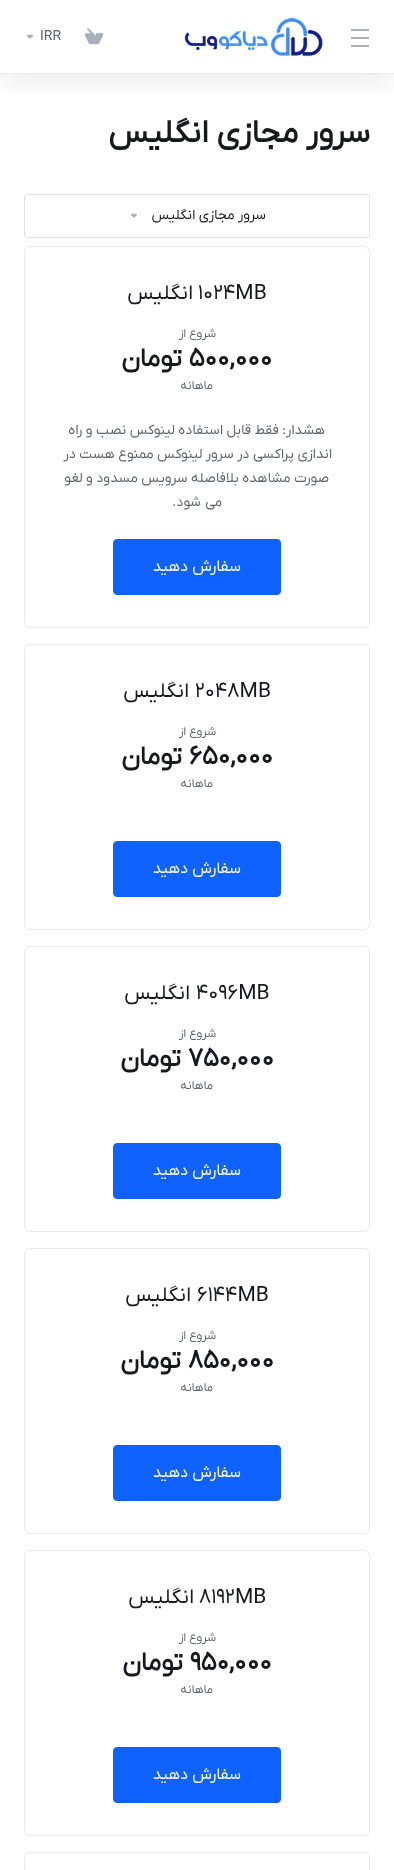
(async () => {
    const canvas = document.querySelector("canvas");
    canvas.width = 394;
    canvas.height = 1870;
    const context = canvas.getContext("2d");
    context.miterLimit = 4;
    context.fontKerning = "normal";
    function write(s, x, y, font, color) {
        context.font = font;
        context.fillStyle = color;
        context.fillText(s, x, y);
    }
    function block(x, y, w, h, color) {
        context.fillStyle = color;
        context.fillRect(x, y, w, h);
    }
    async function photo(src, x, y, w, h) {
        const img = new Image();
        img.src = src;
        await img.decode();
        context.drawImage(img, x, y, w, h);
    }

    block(0, 0, 394, 1870, "rgb(255, 255, 255)");
    context.save();
    context.beginPath();
    context.rect(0, 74, 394, 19);
    context.clip();
    context.fillStyle = "rgba(0, 0, 0, 0.08)";
    context.filter = "blur(16px)";
    context.beginPath();
    context.rect(0, 8, 394, 74);
    context.fill();
    context.filter = "none";
    context.restore();
    block(0, 73, 394, 1, "rgb(233, 234, 236)");
    block(351, 29, 18, 2, "rgb(172, 175, 185)");
    block(351, 37, 18, 2, "rgb(172, 175, 185)");
    block(351, 45, 18, 2, "rgb(172, 175, 185)");
    await photo("media/1.png", 184, 17, 139, 40);
    await photo("media/2.png", 85, 28, 18, 17);
    write("IRR", 40, 40, "14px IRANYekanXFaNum", "rgb(94, 99, 110)");
    await photo("media/3.png", 27, 34, 6, 5);
    context.direction = "rtl";
    write("سرور مجازی انگلیس", 370, 142, "bold 32px IRANYekanXFaNum", "rgb(23, 25, 28)");
    context.beginPath();
    context.roundRect(24.5, 194.5, 345, 43, 2.5);
    context.strokeStyle = "rgb(222, 224, 227)";
    context.stroke();
    write("سرور مجازی انگلیس", 266, 219, "14px IRANYekanXFaNum", "rgb(23, 25, 28)");
    await photo("media/3.png", 131, 213, 6, 5);
    context.beginPath();
    context.roundRect(24.5, 246.5, 345, 381, 5.5);
    context.strokeStyle = "rgb(233, 234, 236)";
    context.stroke();
    context.direction = "ltr";
    write("1024MB", 198, 299, "21px IRANYekanXFaNum", "rgb(23, 25, 28)");
    context.direction = "rtl";
    write("انگلیس", 193, 299, "21px IRANYekanXFaNum", "rgb(23, 25, 28)");
    write("شروع از", 216, 337, "12px IRANYekanXFaNum", "rgb(94, 99, 110)");
    context.direction = "ltr";
    write("500,000", 189, 366, "bold 26px IRANYekanXFaNum", "rgb(23, 25, 28)");
    context.direction = "rtl";
    write("تومان", 182, 366, "bold 26px IRANYekanXFaNum", "rgb(23, 25, 28)");
    write("ماهانه", 213, 389, "12px IRANYekanXFaNum", "rgb(94, 99, 110)");
    write("هشدار: فقط قابل استفاده لینوکس نصب و راه", 325, 434, "14px IRANYekanXFaNum", "rgb(94, 99, 110)");
    write("اندازی پراکسی در سرور لینوکس ممنوع هست در", 332, 458, "14px IRANYekanXFaNum", "rgb(94, 99, 110)");
    write("صورت مشاهده بلافاصله سرویس مسدود و لغو", 329, 482, "14px IRANYekanXFaNum", "rgb(94, 99, 110)");
    context.wordSpacing = "1px";
    write("می شود.", 222, 506, "14px IRANYekanXFaNum", "rgb(94, 99, 110)");
    context.fillStyle = "rgb(16, 98, 254)";
    context.beginPath();
    context.roundRect(113.5, 539.5, 167, 55, 3.5);
    context.fill();
    context.strokeStyle = "rgb(16, 98, 254)";
    context.stroke();
    context.wordSpacing = "0px";
    write("سفارش دهید", 241, 571, "16px IRANYekanXFaNum", "rgb(255, 255, 255)");
    context.beginPath();
    context.roundRect(24.5, 644.5, 345, 285, 5.5);
    context.strokeStyle = "rgb(233, 234, 236)";
    context.stroke();
    context.direction = "ltr";
    write("2048MB", 195, 697, "21px IRANYekanXFaNum", "rgb(23, 25, 28)");
    context.direction = "rtl";
    write("انگلیس", 189, 697, "21px IRANYekanXFaNum", "rgb(23, 25, 28)");
    write("شروع از", 216, 735, "12px IRANYekanXFaNum", "rgb(94, 99, 110)");
    context.direction = "ltr";
    write("650,000", 189, 764, "bold 26px IRANYekanXFaNum", "rgb(23, 25, 28)");
    context.direction = "rtl";
    write("تومان", 182, 764, "bold 26px IRANYekanXFaNum", "rgb(23, 25, 28)");
    write("ماهانه", 213, 787, "12px IRANYekanXFaNum", "rgb(94, 99, 110)");
    context.fillStyle = "rgb(16, 98, 254)";
    context.beginPath();
    context.roundRect(113.5, 841.5, 167, 55, 3.5);
    context.fill();
    context.strokeStyle = "rgb(16, 98, 254)";
    context.stroke();
    write("سفارش دهید", 241, 873, "16px IRANYekanXFaNum", "rgb(255, 255, 255)");
    context.beginPath();
    context.roundRect(24.5, 946.5, 345, 285, 5.5);
    context.strokeStyle = "rgb(233, 234, 236)";
    context.stroke();
    context.direction = "ltr";
    write("4096MB", 196, 999, "21px IRANYekanXFaNum", "rgb(23, 25, 28)");
    context.direction = "rtl";
    write("انگلیس", 190, 999, "21px IRANYekanXFaNum", "rgb(23, 25, 28)");
    write("شروع از", 216, 1037, "12px IRANYekanXFaNum", "rgb(94, 99, 110)");
    context.direction = "ltr";
    write("750,000", 188, 1066, "bold 26px IRANYekanXFaNum", "rgb(23, 25, 28)");
    context.direction = "rtl";
    write("تومان", 181, 1066, "bold 26px IRANYekanXFaNum", "rgb(23, 25, 28)");
    write("ماهانه", 213, 1089, "12px IRANYekanXFaNum", "rgb(94, 99, 110)");
    context.fillStyle = "rgb(16, 98, 254)";
    context.beginPath();
    context.roundRect(113.5, 1143.5, 167, 55, 3.5);
    context.fill();
    context.strokeStyle = "rgb(16, 98, 254)";
    context.stroke();
    write("سفارش دهید", 241, 1175, "16px IRANYekanXFaNum", "rgb(255, 255, 255)");
    context.beginPath();
    context.roundRect(24.5, 1248.5, 345, 285, 5.5);
    context.strokeStyle = "rgb(233, 234, 236)";
    context.stroke();
    context.direction = "ltr";
    write("6144MB", 197, 1301, "21px IRANYekanXFaNum", "rgb(23, 25, 28)");
    context.direction = "rtl";
    write("انگلیس", 191, 1301, "21px IRANYekanXFaNum", "rgb(23, 25, 28)");
    write("شروع از", 216, 1339, "12px IRANYekanXFaNum", "rgb(94, 99, 110)");
    context.direction = "ltr";
    write("850,000", 188, 1368, "bold 26px IRANYekanXFaNum", "rgb(23, 25, 28)");
    context.direction = "rtl";
    write("تومان", 181, 1368, "bold 26px IRANYekanXFaNum", "rgb(23, 25, 28)");
    write("ماهانه", 213, 1391, "12px IRANYekanXFaNum", "rgb(94, 99, 110)");
    context.fillStyle = "rgb(16, 98, 254)";
    context.beginPath();
    context.roundRect(113.5, 1445.5, 167, 55, 3.5);
    context.fill();
    context.strokeStyle = "rgb(16, 98, 254)";
    context.stroke();
    write("سفارش دهید", 241, 1477, "16px IRANYekanXFaNum", "rgb(255, 255, 255)");
    context.beginPath();
    context.roundRect(24.5, 1550.5, 345, 285, 5.5);
    context.strokeStyle = "rgb(233, 234, 236)";
    context.stroke();
    context.direction = "ltr";
    write("8192MB", 199, 1603, "21px IRANYekanXFaNum", "rgb(23, 25, 28)");
    context.direction = "rtl";
    write("انگلیس", 194, 1603, "21px IRANYekanXFaNum", "rgb(23, 25, 28)");
    write("شروع از", 216, 1641, "12px IRANYekanXFaNum", "rgb(94, 99, 110)");
    context.direction = "ltr";
    write("950,000", 190, 1670, "bold 26px IRANYekanXFaNum", "rgb(23, 25, 28)");
    context.direction = "rtl";
    write("تومان", 183, 1670, "bold 26px IRANYekanXFaNum", "rgb(23, 25, 28)");
    write("ماهانه", 213, 1693, "12px IRANYekanXFaNum", "rgb(94, 99, 110)");
    context.fillStyle = "rgb(16, 98, 254)";
    context.beginPath();
    context.roundRect(113.5, 1747.5, 167, 55, 3.5);
    context.fill();
    context.strokeStyle = "rgb(16, 98, 254)";
    context.stroke();
    write("سفارش دهید", 241, 1779, "16px IRANYekanXFaNum", "rgb(255, 255, 255)");
    context.beginPath();
    context.roundRect(24.5, 1852.5, 345, 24, 5.5);
    context.strokeStyle = "rgb(233, 234, 236)";
    context.stroke();
})();
